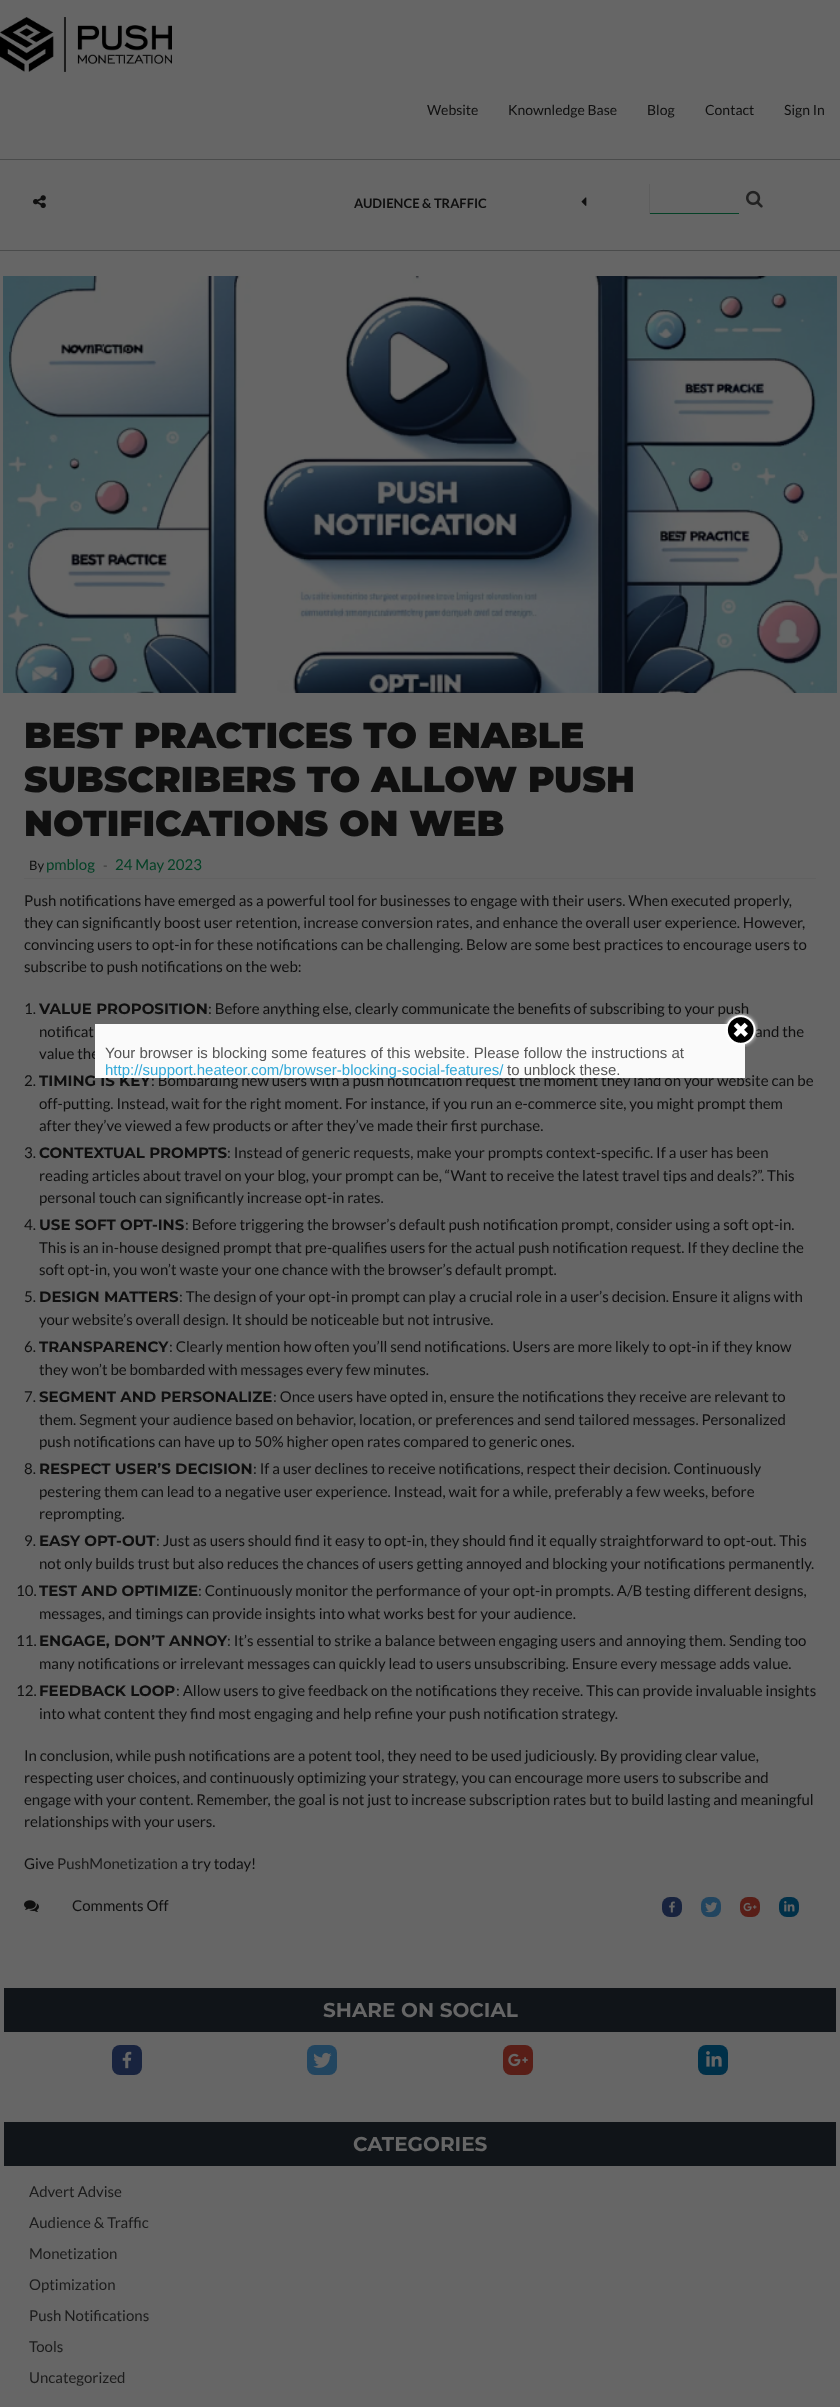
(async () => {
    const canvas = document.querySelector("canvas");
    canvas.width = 840;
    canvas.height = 2407;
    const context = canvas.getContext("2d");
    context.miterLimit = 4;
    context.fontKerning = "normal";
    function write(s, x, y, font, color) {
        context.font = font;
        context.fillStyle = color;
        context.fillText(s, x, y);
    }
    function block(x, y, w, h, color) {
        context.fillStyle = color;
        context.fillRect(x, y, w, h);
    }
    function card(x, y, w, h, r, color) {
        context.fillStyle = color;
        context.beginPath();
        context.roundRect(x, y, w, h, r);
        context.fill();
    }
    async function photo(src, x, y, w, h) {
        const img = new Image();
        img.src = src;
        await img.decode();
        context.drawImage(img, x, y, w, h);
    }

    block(0, 0, 840, 2407, "rgb(102, 102, 102)");
    await photo("media/1.png", 0, 17, 172, 55);
    write("Website", 427, 115, "14px Lato", "rgb(15, 15, 15)");
    write("Knownledge Base", 508, 115, "14px Lato", "rgb(15, 15, 15)");
    write("Blog", 647, 115, "14px Lato", "rgb(15, 15, 15)");
    write("Contact", 705, 115, "14px Lato", "rgb(15, 15, 15)");
    write("Sign In", 784, 115, "14px Lato", "rgb(15, 15, 15)");
    block(0, 159, 840, 1, "rgb(74, 75, 75)");
    block(0, 250, 840, 1, "rgb(74, 75, 75)");
    await photo("media/2.png", 33, 195, 13, 14);
    write("AUDIENCE & TRAFFIC", 354, 208, "bold 13px Lato", "rgb(15, 15, 15)");
    await photo("media/3.png", 581, 197, 6, 9);
    block(649, 213, 90, 1, "rgb(4, 65, 38)");
    block(649, 184, 1, 30, "rgb(94, 94, 94)");
    await photo("media/4.png", 746, 190, 17, 18);
    await photo("media/5.png", 3, 276, 834, 417);
    write("BEST PRACTICES TO ENABLE", 24, 748, "900 36px Montserrat", "rgb(15, 15, 15)");
    write("SUBSCRIBERS TO ALLOW PUSH", 24, 792, "900 36px Montserrat", "rgb(15, 15, 15)");
    write("NOTIFICATIONS ON WEB", 24, 836, "900 36px Montserrat", "rgb(15, 15, 15)");
    block(24, 878, 792, 1, "rgb(97, 97, 97)");
    write("By", 29, 870, "13px Lato", "rgb(15, 15, 15)");
    write("pmblog", 46, 870, "15px Lato", "rgb(4, 65, 38)");
    write("-", 103, 870, "13px Lato", "rgb(54, 54, 54)");
    write("24 May 2023", 115, 870, "15px Lato", "rgb(4, 65, 38)");
    write("Push notifications have emerged as a powerful tool for businesses to engage with their users. When executed properly,", 24, 906, "15px Lato", "rgb(15, 15, 15)");
    write("they can significantly boost user retention, increase conversion rates, and enhance the overall user experience. However,", 24, 928, "15px Lato", "rgb(15, 15, 15)");
    write("convincing users to opt-in for these notifications can be challenging. Below are some best practices to encourage users to", 24, 950, "15px Lato", "rgb(15, 15, 15)");
    write("subscribe to push notifications on the web:", 24, 972, "15px Lato", "rgb(15, 15, 15)");
    write("1.", 24, 1014, "15px Lato", "rgb(15, 15, 15)");
    write("VALUE PROPOSITION", 39, 1014, "bold 15px Montserrat", "rgb(15, 15, 15)");
    write(": Before anything else, clearly communicate the benefits of subscribing to your push", 208, 1014, "15px Lato", "rgb(15, 15, 15)");
    write("notificat", 39, 1037, "15px Lato", "rgb(15, 15, 15)");
    write("and the", 755, 1037, "15px Lato", "rgb(15, 15, 15)");
    write("value the", 39, 1059, "15px Lato", "rgb(15, 15, 15)");
    write("2.", 24, 1086, "15px Lato", "rgb(15, 15, 15)");
    write("TIMING IS KEY", 39, 1086, "bold 15px Montserrat", "rgb(15, 15, 15)");
    write(": Bombarding new users with a push notification request the moment they land on your website can be", 151, 1086, "15px Lato", "rgb(15, 15, 15)");
    write("off-putting. Instead, wait for the right moment. For instance, if you run an e-commerce site, you might prompt them", 39, 1109, "15px Lato", "rgb(15, 15, 15)");
    write("after they’ve viewed a few products or after they’ve made their first purchase.", 39, 1131, "15px Lato", "rgb(15, 15, 15)");
    write("3.", 24, 1158, "15px Lato", "rgb(15, 15, 15)");
    write("CONTEXTUAL PROMPTS", 39, 1158, "bold 15px Montserrat", "rgb(15, 15, 15)");
    write(": Instead of generic requests, make your prompts context-specific. If a user has been", 227, 1158, "15px Lato", "rgb(15, 15, 15)");
    write("reading articles about travel on your blog, your prompt can be, “Want to receive the latest travel tips and deals?”. This", 39, 1181, "15px Lato", "rgb(15, 15, 15)");
    write("personal touch can significantly increase opt-in rates.", 39, 1203, "15px Lato", "rgb(15, 15, 15)");
    write("4.", 24, 1230, "15px Lato", "rgb(15, 15, 15)");
    write("USE SOFT OPT-INS", 39, 1230, "bold 15px Montserrat", "rgb(15, 15, 15)");
    write(": Before triggering the browser’s default push notification prompt, consider using a soft opt-in.", 185, 1230, "15px Lato", "rgb(15, 15, 15)");
    write("This is an in-house designed prompt that pre-qualifies users for the actual push notification request. If they decline the", 39, 1253, "15px Lato", "rgb(15, 15, 15)");
    write("soft opt-in, you won’t waste your one chance with the browser’s default prompt.", 39, 1275, "15px Lato", "rgb(15, 15, 15)");
    write("5.", 24, 1302, "15px Lato", "rgb(15, 15, 15)");
    write("DESIGN MATTERS", 39, 1302, "bold 15px Montserrat", "rgb(15, 15, 15)");
    write(": The design of your opt-in prompt can play a crucial role in a user’s decision. Ensure it aligns with", 179, 1302, "15px Lato", "rgb(15, 15, 15)");
    write("your website’s overall design. It should be noticeable but not intrusive.", 39, 1325, "15px Lato", "rgb(15, 15, 15)");
    write("6.", 24, 1352, "15px Lato", "rgb(15, 15, 15)");
    write("TRANSPARENCY", 39, 1352, "bold 15px Montserrat", "rgb(15, 15, 15)");
    write(": Clearly mention how often you’ll send notifications. Users are more likely to opt-in if they know", 169, 1352, "15px Lato", "rgb(15, 15, 15)");
    write("they won’t be bombarded with messages every few minutes.", 39, 1375, "15px Lato", "rgb(15, 15, 15)");
    write("7.", 24, 1402, "15px Lato", "rgb(15, 15, 15)");
    write("SEGMENT AND PERSONALIZE", 39, 1402, "bold 15px Montserrat", "rgb(15, 15, 15)");
    write(": Once users have opted in, ensure the notifications they receive are relevant to", 273, 1402, "15px Lato", "rgb(15, 15, 15)");
    write("them. Segment your audience based on behavior, location, or preferences and send tailored messages. Personalized", 39, 1425, "15px Lato", "rgb(15, 15, 15)");
    write("push notifications can have up to 50% higher open rates compared to generic ones.", 39, 1447, "15px Lato", "rgb(15, 15, 15)");
    write("8.", 24, 1474, "15px Lato", "rgb(15, 15, 15)");
    write("RESPECT USER’S DECISION", 39, 1474, "bold 15px Montserrat", "rgb(15, 15, 15)");
    write(": If a user declines to receive notifications, respect their decision. Continuously", 253, 1474, "15px Lato", "rgb(15, 15, 15)");
    write("pestering them can lead to a negative user experience. Instead, wait for a while, preferably a few weeks, before", 39, 1497, "15px Lato", "rgb(15, 15, 15)");
    write("reprompting.", 39, 1519, "15px Lato", "rgb(15, 15, 15)");
    write("9.", 24, 1546, "15px Lato", "rgb(15, 15, 15)");
    write("EASY OPT-OUT", 39, 1546, "bold 15px Montserrat", "rgb(15, 15, 15)");
    write(": Just as users should find it easy to opt-in, they should find it equally straightforward to opt-out. This", 156, 1546, "15px Lato", "rgb(15, 15, 15)");
    write("not only builds trust but also reduces the chances of users getting annoyed and blocking your notifications permanently.", 39, 1569, "15px Lato", "rgb(15, 15, 15)");
    write("10.", 16, 1596, "15px Lato", "rgb(15, 15, 15)");
    write("TEST AND OPTIMIZE", 39, 1596, "bold 15px Montserrat", "rgb(15, 15, 15)");
    write(": Continuously monitor the performance of your opt-in prompts. A/B testing different designs,", 198, 1596, "15px Lato", "rgb(15, 15, 15)");
    write("messages, and timings can provide insights into what works best for your audience.", 39, 1619, "15px Lato", "rgb(15, 15, 15)");
    write("11.", 16, 1646, "15px Lato", "rgb(15, 15, 15)");
    write("ENGAGE, DON’T ANNOY", 39, 1646, "bold 15px Montserrat", "rgb(15, 15, 15)");
    write(": It’s essential to strike a balance between engaging users and annoying them. Sending too", 227, 1646, "15px Lato", "rgb(15, 15, 15)");
    write("many notifications or irrelevant messages can quickly lead to users unsubscribing. Ensure every message adds value.", 39, 1669, "15px Lato", "rgb(15, 15, 15)");
    write("12.", 16, 1696, "15px Lato", "rgb(15, 15, 15)");
    write("FEEDBACK LOOP", 39, 1696, "bold 15px Montserrat", "rgb(15, 15, 15)");
    write(": Allow users to give feedback on the notifications they receive. This can provide invaluable insights", 176, 1696, "15px Lato", "rgb(15, 15, 15)");
    write("into what content they find most engaging and help refine your push notification strategy.", 39, 1719, "15px Lato", "rgb(15, 15, 15)");
    write("In conclusion, while push notifications are a potent tool, they need to be used judiciously. By providing clear value,", 24, 1761, "15px Lato", "rgb(15, 15, 15)");
    write("respecting user choices, and continuously optimizing your strategy, you can encourage more users to subscribe and", 24, 1783, "15px Lato", "rgb(15, 15, 15)");
    write("engage with your content. Remember, the goal is not just to increase subscription rates but to build lasting and meaningful", 24, 1805, "15px Lato", "rgb(15, 15, 15)");
    write("relationships with your users.", 24, 1827, "15px Lato", "rgb(15, 15, 15)");
    write("Give", 24, 1869, "15px Lato", "rgb(15, 15, 15)");
    write("PushMonetization", 57, 1869, "15px Lato", "rgb(27, 27, 27)");
    write("a try today!", 181, 1869, "15px Lato", "rgb(15, 15, 15)");
    await photo("media/6.png", 24, 1900, 15, 12);
    write("Comments Off", 72, 1911, "15px Lato", "rgb(15, 15, 15)");
    card(662, 1897, 20, 20, 8, "rgb(24, 35, 62)");
    await photo("media/7.png", 669, 1901, 6, 12);
    card(701, 1897, 20, 20, 8, "rgb(34, 69, 95)");
    await photo("media/8.png", 705, 1902, 13, 11);
    card(740, 1897, 20, 20, 8, "rgb(88, 30, 23)");
    await photo("media/9.png", 743, 1902, 14, 10);
    card(779, 1897, 20, 20, 8, "rgb(0, 48, 72)");
    await photo("media/10.png", 784, 1901, 11, 11);
    block(4, 1988, 832, 44, "rgb(16, 20, 24)");
    write("SHARE ON SOCIAL", 323, 2017, "bold 20px Montserrat", "rgb(102, 102, 102)");
    card(112, 2045, 30, 30, 8, "rgb(24, 35, 62)");
    await photo("media/11.png", 122, 2051, 10, 18);
    card(307, 2045, 30, 30, 8, "rgb(34, 69, 95)");
    await photo("media/12.png", 313, 2052, 19, 16);
    card(503, 2045, 30, 30, 8, "rgb(88, 30, 23)");
    await photo("media/13.png", 508, 2053, 20, 14);
    card(698, 2045, 30, 30, 8, "rgb(0, 48, 72)");
    await photo("media/14.png", 706, 2051, 16, 16);
    block(4, 2122, 832, 44, "rgb(16, 20, 24)");
    write("CATEGORIES", 353, 2151, "bold 20px Montserrat", "rgb(102, 102, 102)");
    write("Advert Advise", 29, 2197, "15px Lato", "rgb(27, 27, 27)");
    write("Audience & Traffic", 29, 2228, "15px Lato", "rgb(27, 27, 27)");
    write("Monetization", 29, 2259, "15px Lato", "rgb(27, 27, 27)");
    write("Optimization", 29, 2290, "15px Lato", "rgb(27, 27, 27)");
    write("Push Notifications", 29, 2321, "15px Lato", "rgb(27, 27, 27)");
    write("Tools", 29, 2352, "15px Lato", "rgb(27, 27, 27)");
    write("Uncategorized", 29, 2383, "15px Lato", "rgb(27, 27, 27)");
    block(95, 1024, 650, 54, "rgb(250, 250, 250)");
    await photo("media/15.png", 723, 1013, 35, 34);
    write("Your browser is blocking some features of this website. Please follow the instructions at", 105, 1058, "15px Liberation Sans", "rgb(85, 85, 85)");
    context.save();
    context.beginPath();
    context.rect(95, 1024, 650, 54);
    context.clip();
    write("http://support.heateor.com/browser-blocking-social-features/", 105, 1075, "15px Liberation Sans", "rgb(51, 169, 216)");
    context.restore();
    write("to unblock these.", 507, 1075, "15px Liberation Sans", "rgb(85, 85, 85)");
})();
